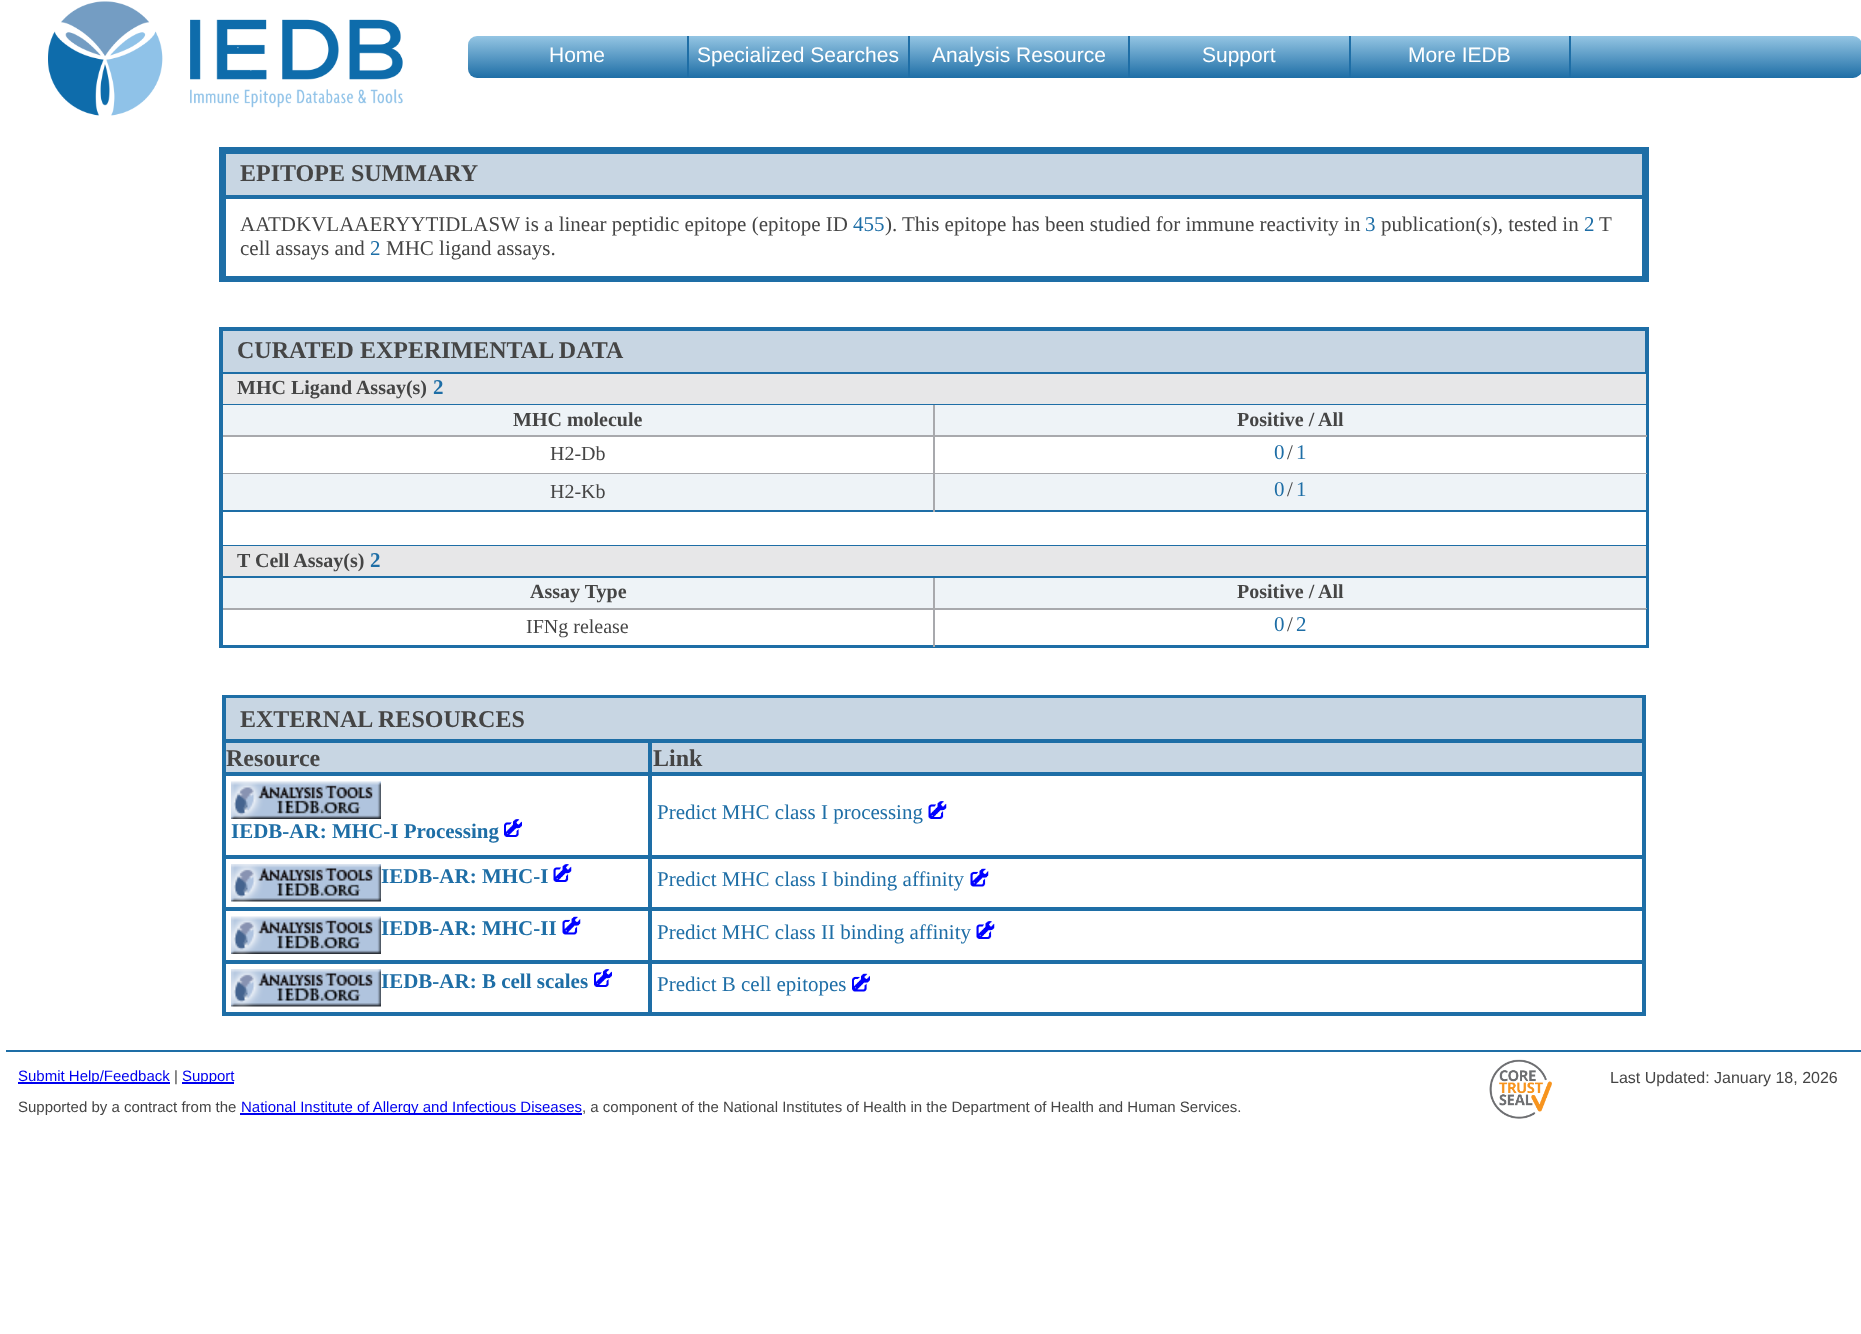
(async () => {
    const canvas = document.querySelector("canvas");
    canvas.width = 1861;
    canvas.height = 1334;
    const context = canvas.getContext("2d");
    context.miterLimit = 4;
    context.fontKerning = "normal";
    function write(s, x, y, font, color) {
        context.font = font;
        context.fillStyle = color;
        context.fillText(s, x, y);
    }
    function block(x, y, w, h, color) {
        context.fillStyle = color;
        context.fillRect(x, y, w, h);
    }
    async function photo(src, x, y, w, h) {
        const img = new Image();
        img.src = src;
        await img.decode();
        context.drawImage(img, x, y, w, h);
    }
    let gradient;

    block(0, 0, 1861, 1334, "rgb(255, 255, 255)");
    await photo("media/1.png", 48, 1, 355, 115);
    gradient = context.createLinearGradient(1165, 78, 1165, 36);
    gradient.addColorStop(0, "rgb(30, 110, 166)");
    gradient.addColorStop(1, "rgb(148, 197, 227)");
    context.fillStyle = gradient;
    context.beginPath();
    context.roundRect(468, 36, 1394, 42, 9);
    context.fill();
    block(687, 36, 2, 41, "rgb(30, 110, 166)");
    write("Home", 549, 62, "21px Liberation Sans", "rgb(255, 255, 255)");
    block(908, 36, 2, 41, "rgb(30, 110, 166)");
    write("Specialized Searches", 697, 62, "21px Liberation Sans", "rgb(255, 255, 255)");
    block(1128, 36, 2, 41, "rgb(30, 110, 166)");
    write("Analysis Resource", 932, 62, "21px Liberation Sans", "rgb(255, 255, 255)");
    block(1349, 36, 2, 41, "rgb(30, 110, 166)");
    write("Support", 1202, 62, "21px Liberation Sans", "rgb(255, 255, 255)");
    block(1569, 36, 2, 41, "rgb(30, 110, 166)");
    write("More IEDB", 1408, 62, "21px Liberation Sans", "rgb(255, 255, 255)");
    context.strokeStyle = "rgb(30, 110, 166)";
    context.lineWidth = 5;
    context.strokeRect(221.5, 149.5, 1425, 130);
    context.fillStyle = "rgb(200, 214, 227)";
    context.beginPath();
    context.rect(225, 153, 1418, 43);
    context.fill();
    context.lineWidth = 2;
    context.stroke();
    write("EPITOPE SUMMARY", 240, 181, "bold 24px Liberation Serif", "rgb(69, 69, 69)");
    context.strokeRect(225, 198, 1418, 79);
    write("AATDKVLAAERYYTIDLASW is a linear peptidic epitope (epitope ID", 240, 231, "21px Liberation Serif", "rgb(69, 69, 69)");
    write("455", 853, 231, "21px Liberation Serif", "rgb(30, 110, 166)");
    write(").", 885, 231, "21px Liberation Serif", "rgb(69, 69, 69)");
    write("This epitope has been studied for immune reactivity in", 902, 231, "21px Liberation Serif", "rgb(69, 69, 69)");
    write("3", 1365, 231, "21px Liberation Serif", "rgb(30, 110, 166)");
    write("publication(s), tested in", 1381, 231, "21px Liberation Serif", "rgb(69, 69, 69)");
    write("2", 1584, 231, "21px Liberation Serif", "rgb(30, 110, 166)");
    write("T", 1599, 231, "21px Liberation Serif", "rgb(69, 69, 69)");
    write("cell assays and", 240, 255, "21px Liberation Serif", "rgb(69, 69, 69)");
    write("2", 370, 255, "21px Liberation Serif", "rgb(30, 110, 166)");
    write("MHC ligand assays.", 386, 255, "21px Liberation Serif", "rgb(69, 69, 69)");
    context.strokeRect(220, 328, 1428, 319);
    context.fillStyle = "rgb(200, 214, 227)";
    context.beginPath();
    context.rect(222, 330, 1424, 43);
    context.fill();
    context.stroke();
    write("CURATED EXPERIMENTAL DATA", 237, 358, "bold 24px Liberation Serif", "rgb(69, 69, 69)");
    block(223, 374, 1423, 30, "rgb(231, 231, 232)");
    block(1646, 374, 1, 235, "rgb(30, 110, 166)");
    block(221, 404, 1426, 1, "rgb(30, 110, 166)");
    block(221, 374, 2, 31, "rgb(30, 110, 166)");
    write("MHC Ligand Assay(s)", 237, 394, "bold 20px Liberation Serif", "rgb(69, 69, 69)");
    write("2", 433, 394, "bold 21px Liberation Serif", "rgb(30, 110, 166)");
    block(223, 405, 1423, 30, "rgb(238, 243, 247)");
    block(221, 435, 1426, 2, "rgb(168, 169, 173)");
    block(221, 405, 2, 32, "rgb(30, 110, 166)");
    write("MHC molecule", 513, 426, "bold 20px Liberation Serif", "rgb(69, 69, 69)");
    block(933, 405, 2, 32, "rgb(168, 169, 173)");
    write("Positive / All", 1237, 426, "bold 20px Liberation Serif", "rgb(69, 69, 69)");
    block(221, 473, 1426, 1, "rgb(168, 169, 173)");
    block(221, 437, 2, 37, "rgb(30, 110, 166)");
    write("H2-Db", 550, 460, "20px Liberation Serif", "rgb(69, 69, 69)");
    block(933, 437, 2, 37, "rgb(168, 169, 173)");
    write("0", 1274, 459, "21px Liberation Serif", "rgb(30, 110, 166)");
    write("/", 1287, 459, "21px Liberation Serif", "rgb(69, 69, 69)");
    write("1", 1296, 459, "21px Liberation Serif", "rgb(30, 110, 166)");
    block(223, 474, 1423, 36, "rgb(238, 243, 247)");
    block(221, 510, 1426, 2, "rgb(30, 110, 166)");
    block(221, 474, 2, 38, "rgb(30, 110, 166)");
    write("H2-Kb", 550, 498, "20px Liberation Serif", "rgb(69, 69, 69)");
    block(933, 474, 2, 38, "rgb(168, 169, 173)");
    write("0", 1274, 496, "21px Liberation Serif", "rgb(30, 110, 166)");
    write("/", 1287, 496, "21px Liberation Serif", "rgb(69, 69, 69)");
    write("1", 1296, 496, "21px Liberation Serif", "rgb(30, 110, 166)");
    block(221, 545, 1426, 1, "rgb(30, 110, 166)");
    block(221, 512, 2, 34, "rgb(30, 110, 166)");
    block(223, 546, 1423, 30, "rgb(231, 231, 232)");
    block(221, 576, 1426, 2, "rgb(30, 110, 166)");
    block(221, 546, 2, 32, "rgb(30, 110, 166)");
    write("T Cell Assay(s)", 237, 567, "bold 20px Liberation Serif", "rgb(69, 69, 69)");
    write("2", 370, 567, "bold 21px Liberation Serif", "rgb(30, 110, 166)");
    block(223, 578, 1423, 30, "rgb(238, 243, 247)");
    block(221, 608, 1426, 2, "rgb(168, 169, 173)");
    block(221, 578, 2, 31, "rgb(30, 110, 166)");
    write("Assay Type", 530, 598, "bold 20px Liberation Serif", "rgb(69, 69, 69)");
    block(933, 578, 2, 31, "rgb(168, 169, 173)");
    write("Positive / All", 1237, 598, "bold 20px Liberation Serif", "rgb(69, 69, 69)");
    block(221, 645, 712, 1, "rgb(30, 110, 166)");
    block(221, 609, 2, 38, "rgb(30, 110, 166)");
    write("IFNg release", 526, 633, "20px Liberation Serif", "rgb(69, 69, 69)");
    block(1646, 609, 1, 38, "rgb(30, 110, 166)");
    block(933, 645, 714, 1, "rgb(30, 110, 166)");
    block(933, 609, 2, 38, "rgb(168, 169, 173)");
    write("0", 1274, 631, "21px Liberation Serif", "rgb(30, 110, 166)");
    write("/", 1287, 631, "21px Liberation Serif", "rgb(69, 69, 69)");
    write("2", 1296, 631, "21px Liberation Serif", "rgb(30, 110, 166)");
    context.strokeRect(223, 696, 1422, 319);
    context.fillStyle = "rgb(200, 214, 227)";
    context.beginPath();
    context.rect(225, 697, 1418, 43);
    context.fill();
    context.stroke();
    write("EXTERNAL RESOURCES", 240, 727, "bold 24px Liberation Serif", "rgb(69, 69, 69)");
    context.fillStyle = "rgb(200, 214, 227)";
    context.beginPath();
    context.rect(225, 742, 424, 31);
    context.fill();
    context.stroke();
    write("Resource", 226, 766, "bold 24px Liberation Serif", "rgb(69, 69, 69)");
    context.fillStyle = "rgb(200, 214, 227)";
    context.beginPath();
    context.rect(651, 742, 992, 31);
    context.fill();
    context.stroke();
    write("Link", 653, 766, "bold 24px Liberation Serif", "rgb(69, 69, 69)");
    context.strokeRect(651, 775, 992, 81);
    write("Predict MHC class I processing", 657, 819, "21px Liberation Serif", "rgb(30, 110, 166)");
    await photo("media/2.png", 928, 801, 19, 18);
    context.strokeRect(225, 775, 424, 81);
    await photo("media/3.png", 231, 781, 150, 38);
    write("IEDB-AR: MHC-I Processing", 231, 838, "bold 21px Liberation Serif", "rgb(30, 110, 166)");
    await photo("media/4.png", 504, 819, 18, 18);
    context.strokeRect(225, 858, 424, 50);
    await photo("media/5.png", 231, 864, 150, 38);
    write("IEDB-AR: MHC-I", 381, 883, "bold 21px Liberation Serif", "rgb(30, 110, 166)");
    await photo("media/2.png", 553, 864, 19, 18);
    context.strokeRect(651, 858, 992, 50);
    write("Predict MHC class I binding affinity", 657, 886, "21px Liberation Serif", "rgb(30, 110, 166)");
    await photo("media/6.png", 970, 868, 19, 19);
    context.strokeRect(225, 910, 424, 51);
    await photo("media/3.png", 231, 916, 150, 38);
    write("IEDB-AR: MHC-II", 381, 935, "bold 21px Liberation Serif", "rgb(30, 110, 166)");
    await photo("media/7.png", 562, 916, 19, 19);
    context.strokeRect(651, 910, 992, 51);
    write("Predict MHC class II binding affinity", 657, 939, "21px Liberation Serif", "rgb(30, 110, 166)");
    await photo("media/8.png", 976, 921, 19, 18);
    context.strokeRect(225, 963, 424, 50);
    await photo("media/5.png", 231, 969, 150, 38);
    write("IEDB-AR: B cell scales", 381, 988, "bold 21px Liberation Serif", "rgb(30, 110, 166)");
    await photo("media/4.png", 594, 969, 18, 18);
    context.strokeRect(651, 963, 992, 50);
    write("Predict B cell epitopes", 657, 991, "21px Liberation Serif", "rgb(30, 110, 166)");
    await photo("media/9.png", 852, 973, 18, 19);
    block(6, 1050, 1855, 2, "rgb(30, 110, 166)");
    block(18, 1082, 152, 2, "rgb(0, 0, 238)");
    write("Submit Help/Feedback", 18, 1081, "15px Liberation Sans", "rgb(0, 0, 238)");
    write("|", 174, 1081, "15px Liberation Sans", "rgb(69, 69, 69)");
    block(182, 1082, 52, 2, "rgb(0, 0, 238)");
    write("Support", 182, 1081, "15px Liberation Sans", "rgb(0, 0, 238)");
    await photo("media/10.png", 1489, 1059, 63, 60);
    write("Last Updated: January 18, 2026", 1610, 1083, "16px Liberation Sans", "rgb(69, 69, 69)");
    write("Supported by a contract from the", 18, 1112, "15px Liberation Sans", "rgb(69, 69, 69)");
    block(240, 1113, 342, 2, "rgb(0, 0, 238)");
    write("National Institute of Allergy and Infectious Diseases", 241, 1112, "15px Liberation Sans", "rgb(0, 0, 238)");
    write(", a component of the National Institutes of Health in the Department of Health and Human Services.", 582, 1112, "15px Liberation Sans", "rgb(69, 69, 69)");
})();
